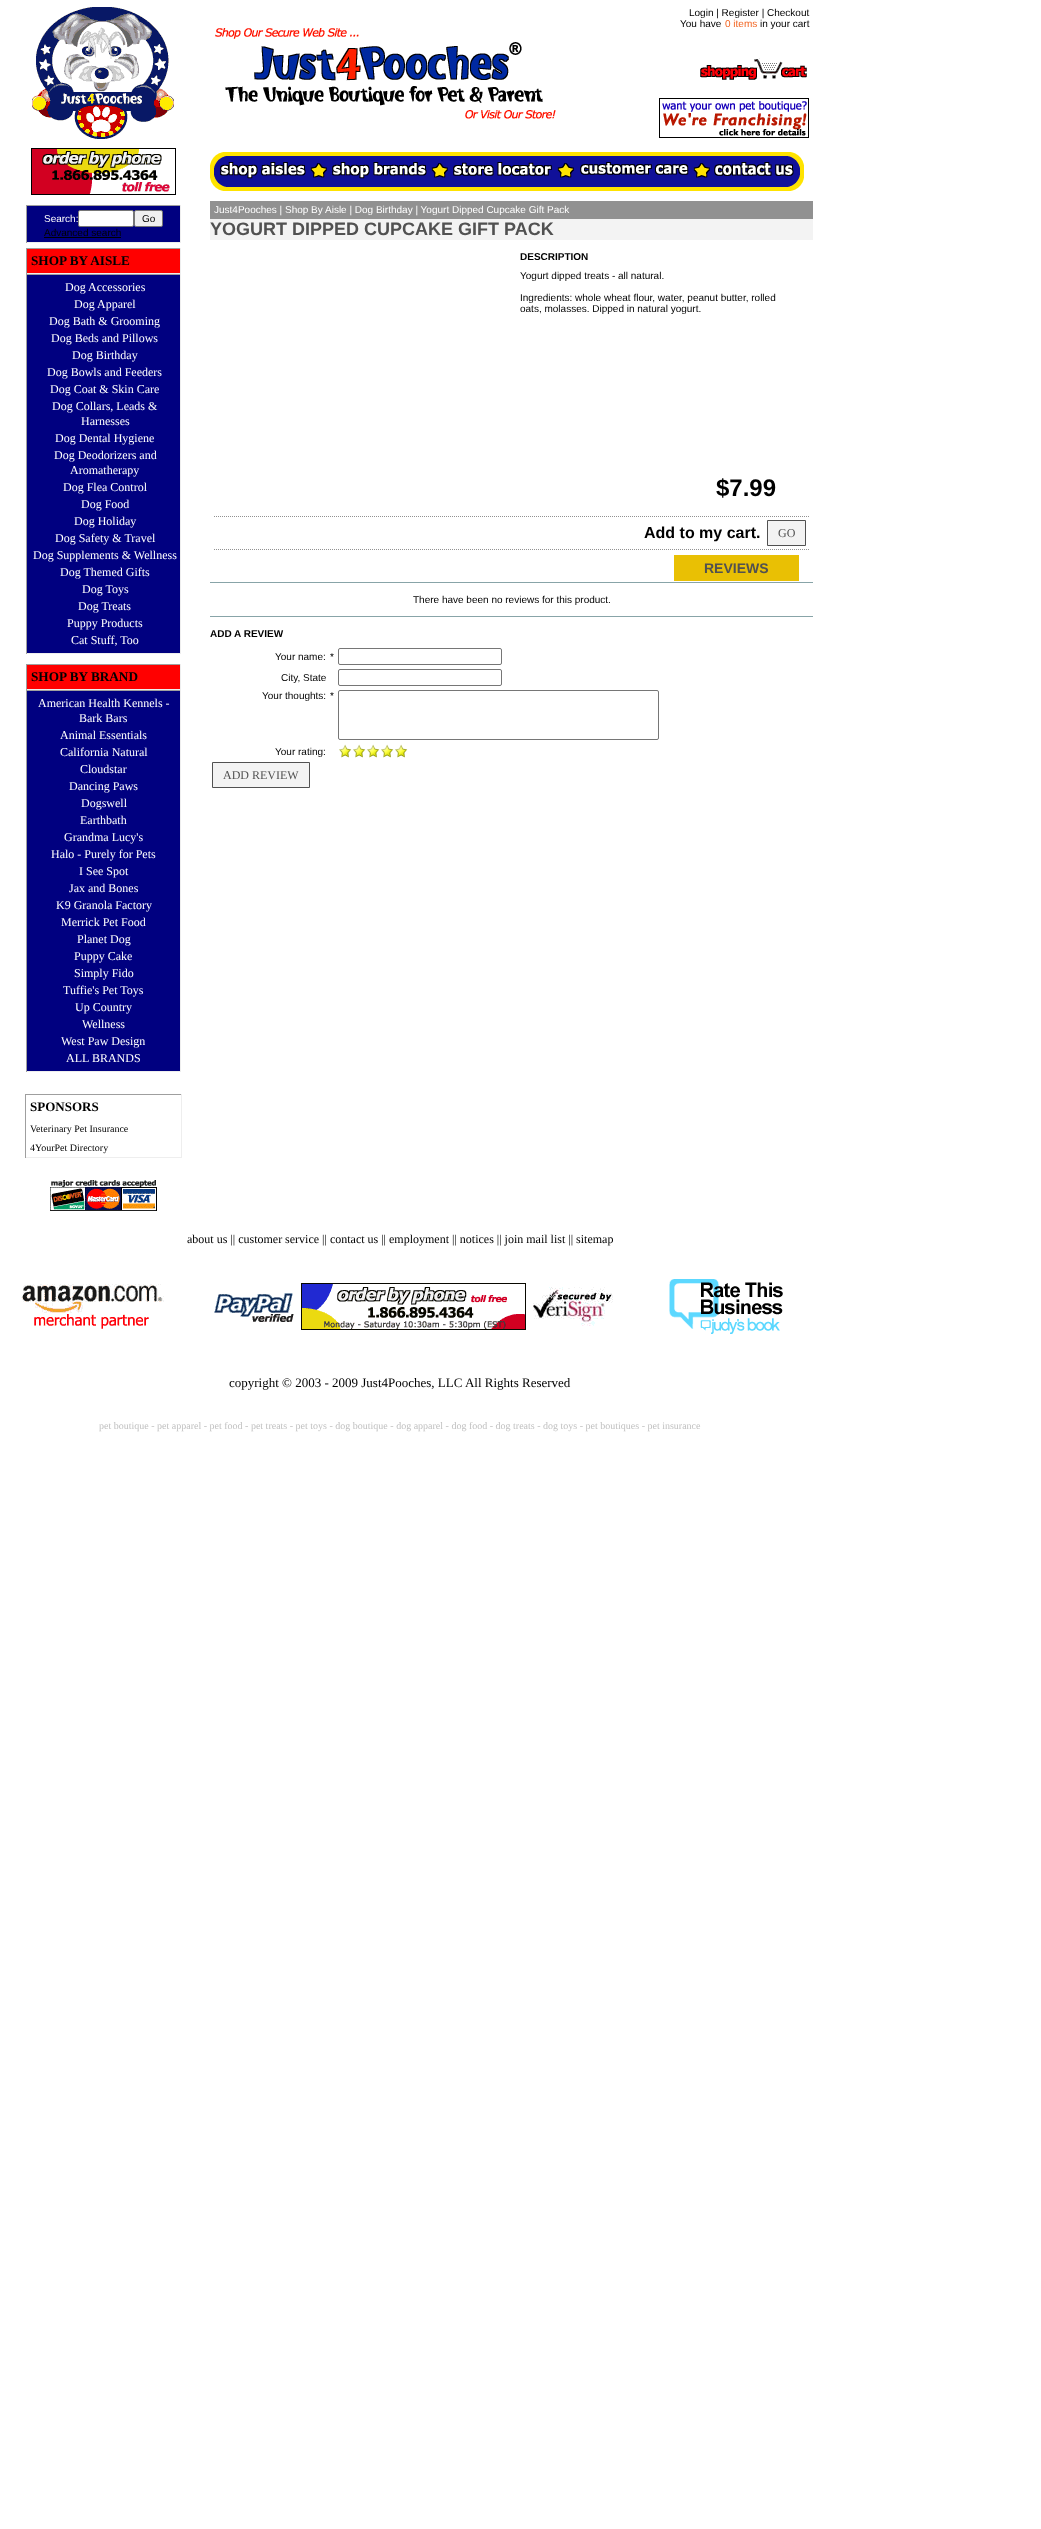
(async () => {
    const canvas = document.querySelector("canvas");
    canvas.width = 1041;
    canvas.height = 2529;
    const context = canvas.getContext("2d");
    context.miterLimit = 4;
    context.fontKerning = "normal";
    function write(s, x, y, font, color) {
        context.font = font;
        context.fillStyle = color;
        context.fillText(s, x, y);
    }
    function block(x, y, w, h, color) {
        context.fillStyle = color;
        context.fillRect(x, y, w, h);
    }
    async function photo(src, x, y, w, h) {
        const img = new Image();
        img.src = src;
        await img.decode();
        context.drawImage(img, x, y, w, h);
    }

    block(0, 0, 1041, 2529, "rgb(255, 255, 255)");
    await photo("media/1.png", 32, 7, 142, 132);
    write("Login | Register | Checkout", 689, 16, "10px Liberation Sans", "rgb(0, 0, 0)");
    write("You have", 680, 27, "10px Liberation Sans", "rgb(0, 0, 0)");
    write("0 items", 725, 27, "10px Liberation Sans", "rgb(242, 101, 34)");
    write("in your cart", 760, 27, "10px Liberation Sans", "rgb(0, 0, 0)");
    await photo("media/2.png", 700, 29, 107, 51);
    await photo("media/3.png", 659, 98, 150, 40);
    await photo("media/4.png", 215, 28, 341, 91);
    await photo("media/5.png", 31, 148, 145, 47);
    await photo("media/6.png", 220, 152, 88, 1);
    block(308, 152, 406, 1, "rgb(255, 227, 0)");
    await photo("media/7.png", 714, 152, 80, 1);
    await photo("media/8.png", 211, 153, 592, 9);
    await photo("media/9.png", 210, 162, 10, 15);
    await photo("media/10.png", 220, 162, 88, 19);
    await photo("media/11.png", 308, 162, 24, 15);
    await photo("media/12.png", 332, 162, 97, 19);
    await photo("media/11.png", 429, 162, 24, 15);
    await photo("media/13.png", 453, 162, 101, 16);
    await photo("media/14.png", 554, 162, 26, 15);
    await photo("media/15.png", 580, 162, 111, 15);
    await photo("media/16.png", 691, 162, 23, 15);
    await photo("media/17.png", 714, 162, 82, 16);
    await photo("media/18.png", 796, 162, 8, 15);
    await photo("media/19.png", 210, 177, 10, 1);
    await photo("media/20.png", 308, 177, 24, 1);
    await photo("media/20.png", 429, 177, 24, 1);
    await photo("media/21.png", 554, 177, 160, 1);
    await photo("media/22.png", 796, 177, 8, 1);
    await photo("media/23.png", 210, 178, 10, 3);
    block(308, 178, 24, 3, "rgb(16, 16, 153)");
    await photo("media/24.png", 429, 178, 375, 3);
    await photo("media/25.png", 211, 181, 592, 10);
    block(27, 206, 153, 36, "rgb(0, 0, 128)");
    block(26, 205, 155, 1, "rgb(159, 159, 159)");
    block(180, 205, 1, 38, "rgb(238, 238, 238)");
    block(26, 242, 155, 1, "rgb(238, 238, 238)");
    block(26, 205, 1, 38, "rgb(159, 159, 159)");
    write("Search:", 44, 222, "10px Liberation Sans", "rgb(255, 255, 255)");
    context.beginPath();
    context.roundRect(78.5, 210.5, 55, 16, 1.5);
    context.fill();
    context.strokeStyle = "rgb(118, 118, 118)";
    context.stroke();
    context.fillStyle = "rgb(239, 239, 239)";
    context.beginPath();
    context.roundRect(134.5, 210.5, 28, 16, 1.5);
    context.fill();
    context.stroke();
    write("Go", 142, 222, "10px Liberation Sans", "rgb(0, 0, 0)");
    write("Advanced search", 44, 236, "10px Liberation Sans", "rgb(0, 0, 0)");
    block(44, 237, 77, 1, "rgb(0, 0, 0)");
    block(27, 249, 153, 24, "rgb(255, 0, 0)");
    block(26, 248, 155, 1, "rgb(159, 159, 159)");
    block(180, 248, 1, 26, "rgb(238, 238, 238)");
    block(26, 273, 155, 1, "rgb(238, 238, 238)");
    block(26, 248, 1, 26, "rgb(159, 159, 159)");
    write("SHOP BY AISLE", 31, 265, "bold 13.25px Liberation Serif", "rgb(0, 0, 0)");
    block(27, 275, 153, 378, "rgb(0, 0, 128)");
    block(26, 274, 155, 1, "rgb(159, 159, 159)");
    block(180, 274, 1, 380, "rgb(238, 238, 238)");
    block(26, 653, 155, 1, "rgb(238, 238, 238)");
    block(26, 274, 1, 380, "rgb(159, 159, 159)");
    write("Dog Accessories", 65, 291, "12px Liberation Serif", "rgb(255, 255, 255)");
    write("Dog Apparel", 74, 308, "12px Liberation Serif", "rgb(255, 255, 255)");
    write("Dog Bath & Grooming", 49, 325, "12px Liberation Serif", "rgb(255, 255, 255)");
    write("Dog Beds and Pillows", 51, 342, "12px Liberation Serif", "rgb(255, 255, 255)");
    write("Dog Birthday", 72, 359, "12px Liberation Serif", "rgb(255, 255, 255)");
    write("Dog Bowls and Feeders", 47, 376, "12px Liberation Serif", "rgb(255, 255, 255)");
    write("Dog Coat & Skin Care", 50, 393, "12px Liberation Serif", "rgb(255, 255, 255)");
    write("Dog Collars, Leads &", 52, 410, "12px Liberation Serif", "rgb(255, 255, 255)");
    write("Harnesses", 81, 425, "12px Liberation Serif", "rgb(255, 255, 255)");
    write("Dog Dental Hygiene", 55, 442, "12px Liberation Serif", "rgb(255, 255, 255)");
    write("Dog Deodorizers and", 54, 459, "12px Liberation Serif", "rgb(255, 255, 255)");
    write("Aromatherapy", 70, 474, "12px Liberation Serif", "rgb(255, 255, 255)");
    write("Dog Flea Control", 63, 491, "12px Liberation Serif", "rgb(255, 255, 255)");
    write("Dog Food", 81, 508, "12px Liberation Serif", "rgb(255, 255, 255)");
    write("Dog Holiday", 74, 525, "12px Liberation Serif", "rgb(255, 255, 255)");
    write("Dog Safety & Travel", 55, 542, "12px Liberation Serif", "rgb(255, 255, 255)");
    write("Dog Supplements & Wellness", 33, 559, "12px Liberation Serif", "rgb(255, 255, 255)");
    write("Dog Themed Gifts", 60, 576, "12px Liberation Serif", "rgb(255, 255, 255)");
    write("Dog Toys", 82, 593, "12px Liberation Serif", "rgb(255, 255, 255)");
    write("Dog Treats", 78, 610, "12px Liberation Serif", "rgb(255, 255, 255)");
    write("Puppy Products", 67, 627, "12px Liberation Serif", "rgb(255, 255, 255)");
    write("Cat Stuff, Too", 71, 644, "12px Liberation Serif", "rgb(255, 255, 255)");
    block(27, 665, 153, 24, "rgb(255, 0, 0)");
    block(26, 664, 155, 1, "rgb(159, 159, 159)");
    block(180, 664, 1, 26, "rgb(238, 238, 238)");
    block(26, 689, 155, 1, "rgb(238, 238, 238)");
    block(26, 664, 1, 26, "rgb(159, 159, 159)");
    write("SHOP BY BRAND", 31, 681, "bold 13.25px Liberation Serif", "rgb(0, 0, 0)");
    block(27, 691, 153, 380, "rgb(0, 0, 128)");
    block(26, 690, 155, 1, "rgb(159, 159, 159)");
    block(180, 690, 1, 382, "rgb(238, 238, 238)");
    block(26, 1071, 155, 1, "rgb(238, 238, 238)");
    block(26, 690, 1, 382, "rgb(159, 159, 159)");
    write("American Health Kennels -", 38, 707, "12px Liberation Serif", "rgb(255, 255, 255)");
    write("Bark Bars", 79, 722, "12px Liberation Serif", "rgb(255, 255, 255)");
    write("Animal Essentials", 60, 739, "12px Liberation Serif", "rgb(255, 255, 255)");
    write("California Natural", 60, 756, "12px Liberation Serif", "rgb(255, 255, 255)");
    write("Cloudstar", 80, 773, "12px Liberation Serif", "rgb(255, 255, 255)");
    write("Dancing Paws", 69, 790, "12px Liberation Serif", "rgb(255, 255, 255)");
    write("Dogswell", 81, 807, "12px Liberation Serif", "rgb(255, 255, 255)");
    write("Earthbath", 80, 824, "12px Liberation Serif", "rgb(255, 255, 255)");
    write("Grandma Lucy's", 64, 841, "12px Liberation Serif", "rgb(255, 255, 255)");
    write("Halo - Purely for Pets", 51, 858, "12px Liberation Serif", "rgb(255, 255, 255)");
    write("I See Spot", 79, 875, "12px Liberation Serif", "rgb(255, 255, 255)");
    write("Jax and Bones", 69, 892, "12px Liberation Serif", "rgb(255, 255, 255)");
    write("K9 Granola Factory", 56, 909, "12px Liberation Serif", "rgb(255, 255, 255)");
    write("Merrick Pet Food", 61, 926, "12px Liberation Serif", "rgb(255, 255, 255)");
    write("Planet Dog", 77, 943, "12px Liberation Serif", "rgb(255, 255, 255)");
    write("Puppy Cake", 74, 960, "12px Liberation Serif", "rgb(255, 255, 255)");
    write("Simply Fido", 74, 977, "12px Liberation Serif", "rgb(255, 255, 255)");
    write("Tuffie's Pet Toys", 63, 994, "12px Liberation Serif", "rgb(255, 255, 255)");
    write("Up Country", 75, 1011, "12px Liberation Serif", "rgb(255, 255, 255)");
    write("Wellness", 82, 1028, "12px Liberation Serif", "rgb(255, 255, 255)");
    write("West Paw Design", 61, 1045, "12px Liberation Serif", "rgb(255, 255, 255)");
    write("ALL BRANDS", 66, 1062, "12px Liberation Serif", "rgb(255, 255, 255)");
    block(25, 1094, 157, 1, "rgb(159, 159, 159)");
    block(181, 1094, 1, 64, "rgb(238, 238, 238)");
    block(25, 1157, 157, 1, "rgb(238, 238, 238)");
    block(25, 1094, 1, 64, "rgb(159, 159, 159)");
    write("SPONSORS", 30, 1111, "bold 13px Liberation Serif", "rgb(0, 0, 0)");
    write("Veterinary Pet Insurance", 30, 1132, "10px Liberation Serif", "rgb(0, 0, 0)");
    write("4YourPet Directory", 30, 1151, "10px Liberation Serif", "rgb(0, 0, 0)");
    await photo("media/26.png", 50, 1180, 107, 31);
    block(210, 201, 603, 18, "rgb(145, 145, 145)");
    write("Just4Pooches | Shop By Aisle | Dog Birthday | Yogurt Dipped Cupcake Gift Pack", 214, 213, "10px Liberation Sans", "rgb(255, 255, 255)");
    block(210, 219, 603, 21, "rgb(243, 243, 243)");
    write("YOGURT DIPPED CUPCAKE GIFT PACK", 210, 235, "bold 18px Liberation Sans", "rgb(81, 81, 81)");
    write("DESCRIPTION", 520, 260, "bold 10px Liberation Sans", "rgb(0, 0, 0)");
    write("Yogurt dipped treats - all natural.", 520, 279, "10px Liberation Sans", "rgb(0, 0, 0)");
    write("Ingredients: whole wheat flour, water, peanut butter, rolled", 520, 301, "10px Liberation Sans", "rgb(0, 0, 0)");
    write("oats, molasses. Dipped in natural yogurt.", 520, 312, "10px Liberation Sans", "rgb(0, 0, 0)");
    write("$7.99", 716, 496, "bold 24px Liberation Sans", "rgb(0, 0, 0)");
    context.beginPath();
    context.moveTo(214, 516.5);
    context.lineTo(809, 516.5);
    context.strokeStyle = "rgb(145, 145, 145)";
    context.setLineDash([1, 1]);
    context.stroke();
    context.beginPath();
    context.moveTo(214, 549.5);
    context.lineTo(809, 549.5);
    context.stroke();
    write("Add to my cart.", 644, 538, "bold 16px Liberation Sans", "rgb(0, 0, 0)");
    context.fillStyle = "rgb(243, 243, 243)";
    context.beginPath();
    context.rect(767.5, 520.5, 38, 25);
    context.fill();
    context.strokeStyle = "rgb(81, 81, 81)";
    context.setLineDash([]);
    context.stroke();
    write("GO", 778, 537, "12px Liberation Serif", "rgb(81, 81, 81)");
    block(210, 582, 603, 1, "rgb(136, 164, 168)");
    block(674, 555, 125, 26, "rgb(233, 192, 4)");
    write("REVIEWS", 704, 573, "bold 14px Liberation Sans", "rgb(81, 81, 81)");
    write("There have been no reviews for this product.", 413, 603, "10px Liberation Sans", "rgb(0, 0, 0)");
    block(210, 616, 603, 1, "rgb(136, 164, 168)");
    write("ADD A REVIEW", 210, 637, "bold 10px Liberation Sans", "rgb(0, 0, 0)");
    write("Your name:", 275, 660, "10px Liberation Sans", "rgb(0, 0, 0)");
    write("*", 330, 660, "10px Liberation Sans", "rgb(0, 0, 0)");
    context.beginPath();
    context.roundRect(338.5, 648.5, 163, 16, 1.5);
    context.strokeStyle = "rgb(118, 118, 118)";
    context.stroke();
    write("City, State", 281, 681, "10px Liberation Sans", "rgb(0, 0, 0)");
    context.beginPath();
    context.roundRect(338.5, 669.5, 163, 16, 1.5);
    context.stroke();
    write("Your thoughts:", 262, 699, "10px Liberation Sans", "rgb(0, 0, 0)");
    write("*", 330, 699, "10px Liberation Sans", "rgb(0, 0, 0)");
    context.beginPath();
    context.roundRect(338.5, 690.5, 320, 49, 1.5);
    context.stroke();
    write("Your rating:", 275, 755, "10px Liberation Sans", "rgb(0, 0, 0)");
    await photo("media/27.png", 339, 744, 13, 14);
    await photo("media/27.png", 353, 744, 13, 14);
    await photo("media/27.png", 367, 744, 13, 14);
    await photo("media/27.png", 381, 744, 13, 14);
    await photo("media/27.png", 395, 744, 13, 14);
    context.fillStyle = "rgb(243, 243, 243)";
    context.beginPath();
    context.rect(212.5, 762.5, 97, 25);
    context.fill();
    context.strokeStyle = "rgb(81, 81, 81)";
    context.stroke();
    write("ADD REVIEW", 223, 779, "12px Liberation Serif", "rgb(81, 81, 81)");
    write("about us || customer service || contact us || employment || notices || join mail list || sitemap", 187, 1243, "12px Liberation Serif", "rgb(0, 0, 0)");
    await photo("media/28.png", 21, 1284, 143, 45);
    await photo("media/29.png", 214, 1283, 399, 47);
    await photo("media/30.png", 669, 1279, 114, 55);
    write("copyright © 2003 - 2009 Just4Pooches, LLC All Rights Reserved", 229, 1387, "13px Liberation Serif", "rgb(0, 0, 0)");
    write("pet boutique - pet apparel - pet food - pet treats - pet toys - dog boutique - dog apparel - dog food - dog treats - dog toys - pet boutiques - pet insurance", 99, 1429, "10px Liberation Serif", "rgb(192, 192, 192)");
})();
